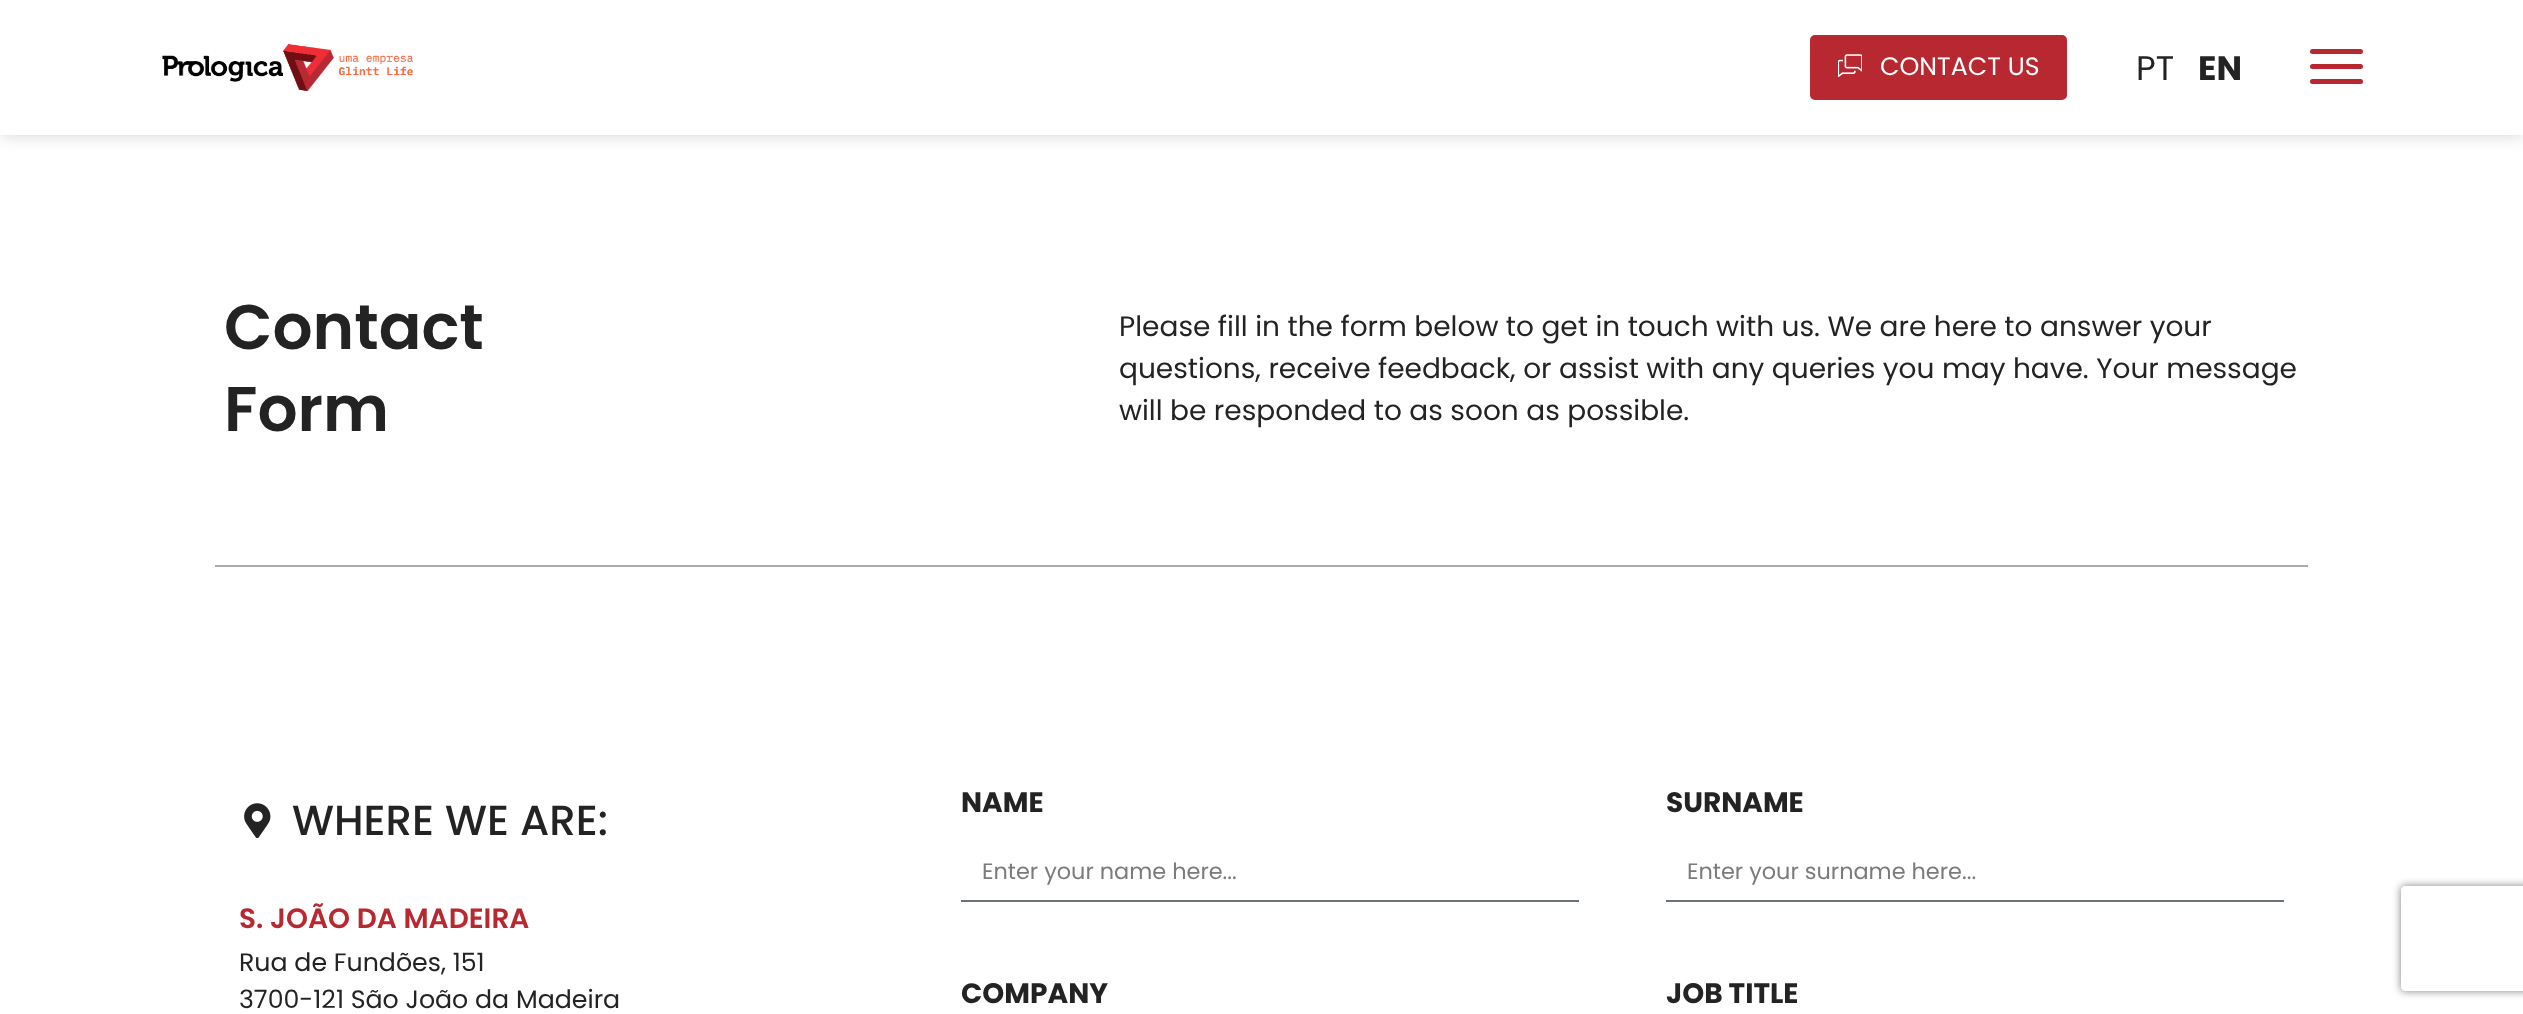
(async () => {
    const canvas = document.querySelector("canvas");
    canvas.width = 2523;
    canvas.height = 1014;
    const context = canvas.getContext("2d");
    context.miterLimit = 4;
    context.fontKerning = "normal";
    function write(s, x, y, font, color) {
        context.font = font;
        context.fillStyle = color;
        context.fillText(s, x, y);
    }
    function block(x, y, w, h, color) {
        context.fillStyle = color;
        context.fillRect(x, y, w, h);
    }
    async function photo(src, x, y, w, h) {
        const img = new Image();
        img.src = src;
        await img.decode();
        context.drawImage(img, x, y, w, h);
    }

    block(0, 0, 2523, 1014, "rgb(255, 255, 255)");
    context.fillStyle = "rgba(0, 0, 0, 0.17)";
    context.filter = "blur(9px)";
    context.beginPath();
    context.rect(0, 0, 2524, 135);
    context.fill();
    context.filter = "none";
    block(0, 0, 2523, 135, "rgb(255, 255, 255)");
    await photo("media/1.png", 162, 44, 252, 47);
    context.fillStyle = "rgb(184, 40, 48)";
    context.beginPath();
    context.roundRect(1811, 36, 255, 63, 4);
    context.fill();
    context.strokeStyle = "rgb(184, 40, 48)";
    context.lineWidth = 2;
    context.stroke();
    await photo("media/2.png", 1838, 54, 24, 23);
    write("CONTACT US", 1880, 75, "25.25px Poppins", "rgb(255, 255, 255)");
    write("PT", 2136, 80, "34px Poppins", "rgb(35, 35, 35)");
    write("EN", 2198, 80, "bold 34px Poppins", "rgb(35, 35, 35)");
    context.beginPath();
    context.moveTo(2312.5, 81.5);
    context.lineTo(2360.5, 81.5);
    context.moveTo(2312.5, 66.5);
    context.lineTo(2360.5, 66.5);
    context.moveTo(2312.5, 51.5);
    context.lineTo(2360.5, 51.5);
    context.lineWidth = 5;
    context.lineCap = "round";
    context.lineJoin = "round";
    context.stroke();
    write("Contact", 224, 349, "600 63px Poppins", "rgb(35, 35, 35)");
    write("Form", 224, 431, "600 63px Poppins", "rgb(35, 35, 35)");
    write("Please fill in the form below to get in touch with us. We are here to answer your", 1119, 336, "28px Poppins", "rgb(35, 35, 35)");
    write("questions, receive feedback, or assist with any queries you may have. Your message", 1119, 378, "28px Poppins", "rgb(35, 35, 35)");
    write("will be responded to as soon as possible.", 1119, 420, "28px Poppins", "rgb(35, 35, 35)");
    block(215, 565, 2093, 2, "rgb(171, 171, 171)");
    await photo("media/3.png", 244, 803, 27, 35);
    write("WHERE WE ARE:", 292, 835, "500 42px Poppins", "rgb(35, 35, 35)");
    write("S. JOÃO DA MADEIRA", 239, 928, "600 28px Poppins", "rgb(184, 40, 48)");
    write("Rua de Fundões, 151", 239, 971, "25.25px Poppins", "rgb(35, 35, 35)");
    write("3700-121 São João da Madeira", 239, 1008, "25.25px Poppins", "rgb(35, 35, 35)");
    write("NAME", 961, 812, "bold 28px Poppins", "rgb(35, 35, 35)");
    block(961, 900, 618, 2, "rgb(105, 114, 125)");
    write("Enter your name here...", 982, 879, "22.4px Poppins", "rgb(123, 123, 123)");
    write("SURNAME", 1666, 812, "bold 28px Poppins", "rgb(35, 35, 35)");
    block(1666, 900, 618, 2, "rgb(105, 114, 125)");
    write("Enter your surname here...", 1687, 879, "22.4px Poppins", "rgb(123, 123, 123)");
    write("COMPANY", 961, 1003, "bold 28px Poppins", "rgb(35, 35, 35)");
    write("JOB TITLE", 1666, 1003, "bold 28px Poppins", "rgb(35, 35, 35)");
    context.save();
    context.beginPath();
    context.moveTo(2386, 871);
    context.lineTo(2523, 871);
    context.lineTo(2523, 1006);
    context.lineTo(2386, 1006);
    context.closePath();
    context.moveTo(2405, 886);
    context.lineTo(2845, 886);
    context.bezierCurveTo(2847, 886, 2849, 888, 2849, 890);
    context.lineTo(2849, 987);
    context.bezierCurveTo(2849, 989, 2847, 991, 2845, 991);
    context.lineTo(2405, 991);
    context.bezierCurveTo(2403, 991, 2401, 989, 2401, 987);
    context.lineTo(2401, 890);
    context.bezierCurveTo(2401, 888, 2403, 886, 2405, 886);
    context.closePath();
    context.clip("evenodd");
    context.fillStyle = "rgb(128, 128, 128)";
    context.filter = "blur(4.5px)";
    context.beginPath();
    context.roundRect(2401, 886, 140, 105, 4);
    context.fill();
    context.filter = "none";
    context.restore();
})();
